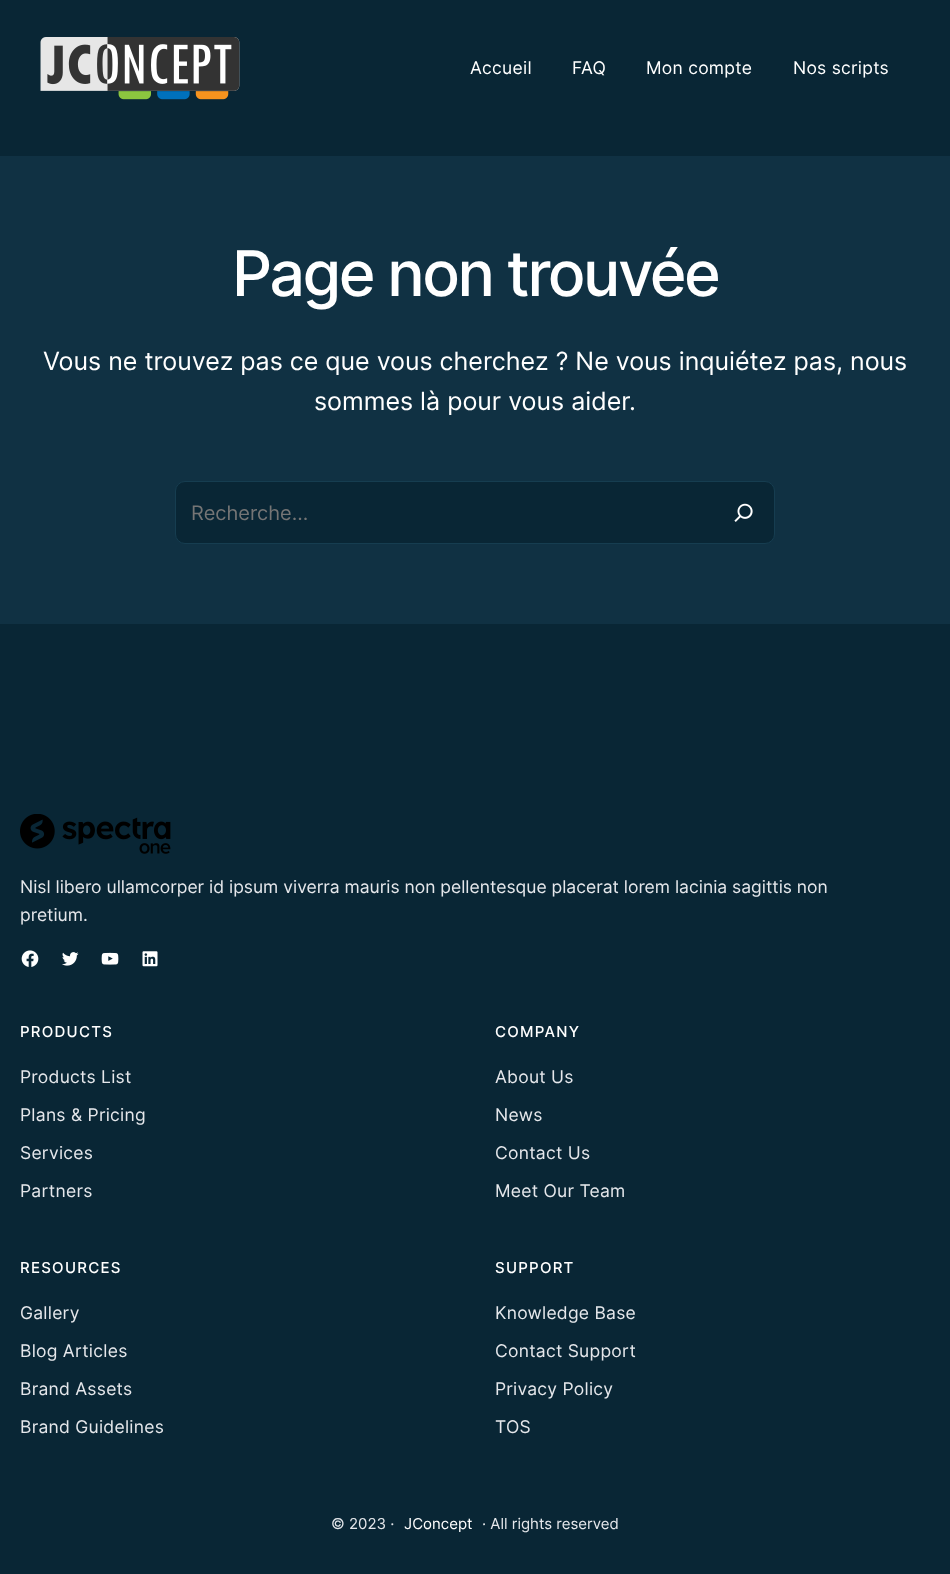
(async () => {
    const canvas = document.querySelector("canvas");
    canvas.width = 950;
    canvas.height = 1574;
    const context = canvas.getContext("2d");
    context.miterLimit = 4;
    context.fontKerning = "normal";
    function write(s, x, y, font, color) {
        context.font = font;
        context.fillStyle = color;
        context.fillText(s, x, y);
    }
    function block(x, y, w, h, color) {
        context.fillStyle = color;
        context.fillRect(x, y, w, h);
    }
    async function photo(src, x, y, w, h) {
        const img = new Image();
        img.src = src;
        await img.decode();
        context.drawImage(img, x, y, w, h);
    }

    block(0, 0, 950, 1574, "rgb(9, 38, 53)");
    await photo("media/1.png", 40, 37, 200, 63);
    context.letterSpacing = "0.25px";
    write("Accueil", 470, 74, "17.5px Inter", "rgb(255, 255, 255)");
    write("FAQ", 572, 74, "17.5px Inter", "rgb(255, 255, 255)");
    write("Mon compte", 646, 74, "17.5px Inter", "rgb(255, 255, 255)");
    write("Nos scripts", 793, 74, "17.5px Inter", "rgb(255, 255, 255)");
    block(0, 156, 950, 468, "rgb(16, 49, 67)");
    context.letterSpacing = "-2.5px";
    write("Page non trouvée", 232, 296, "500 62.75px Inter", "rgb(255, 255, 255)");
    context.letterSpacing = "0px";
    write("Vous ne trouvez pas ce que vous cherchez ? Ne vous inquiétez pas, nous", 43, 370, "25px Inter", "rgb(255, 255, 255)");
    write("sommes là pour vous aider.", 314, 410, "25px Inter", "rgb(255, 255, 255)");
    context.fillStyle = "rgb(9, 38, 53)";
    context.beginPath();
    context.roundRect(175.5, 481.5, 599, 62, 9.5);
    context.fill();
    context.strokeStyle = "rgb(22, 61, 80)";
    context.stroke();
    write("Recherche...", 191, 520, "20px Inter", "rgb(117, 117, 117)");
    await photo("media/2.png", 734, 503, 19, 19);
    await photo("media/3.png", 20, 814, 151, 40);
    write("Nisl libero ullamcorper id ipsum viverra mauris non pellentesque placerat lorem lacinia sagittis non", 20, 893, "17.5px Inter", "rgb(229, 231, 235)");
    write("pretium.", 20, 921, "17.5px Inter", "rgb(229, 231, 235)");
    await photo("media/4.png", 21, 950, 18, 17);
    await photo("media/5.png", 62, 952, 17, 14);
    await photo("media/6.png", 101, 952, 18, 13);
    await photo("media/7.png", 142, 951, 16, 16);
    context.letterSpacing = "1.25px";
    write("PRODUCTS", 20, 1037, "500 15px Inter", "rgb(255, 255, 255)");
    context.letterSpacing = "0.25px";
    write("Products List", 20, 1083, "17.5px Inter", "rgb(229, 231, 235)");
    write("Plans & Pricing", 20, 1121, "17.5px Inter", "rgb(229, 231, 235)");
    write("Services", 20, 1159, "17.5px Inter", "rgb(229, 231, 235)");
    write("Partners", 20, 1197, "17.5px Inter", "rgb(229, 231, 235)");
    context.letterSpacing = "1.25px";
    write("COMPANY", 495, 1037, "500 15px Inter", "rgb(255, 255, 255)");
    context.letterSpacing = "0.25px";
    write("About Us", 495, 1083, "17.5px Inter", "rgb(229, 231, 235)");
    write("News", 495, 1121, "17.5px Inter", "rgb(229, 231, 235)");
    write("Contact Us", 495, 1159, "17.5px Inter", "rgb(229, 231, 235)");
    write("Meet Our Team", 495, 1197, "17.5px Inter", "rgb(229, 231, 235)");
    context.letterSpacing = "1.25px";
    write("RESOURCES", 20, 1273, "500 15px Inter", "rgb(255, 255, 255)");
    context.letterSpacing = "0.25px";
    write("Gallery", 20, 1319, "17.5px Inter", "rgb(229, 231, 235)");
    write("Blog Articles", 20, 1357, "17.5px Inter", "rgb(229, 231, 235)");
    write("Brand Assets", 20, 1395, "17.5px Inter", "rgb(229, 231, 235)");
    write("Brand Guidelines", 20, 1433, "17.5px Inter", "rgb(229, 231, 235)");
    context.letterSpacing = "1.25px";
    write("SUPPORT", 495, 1273, "500 15px Inter", "rgb(255, 255, 255)");
    context.letterSpacing = "0.25px";
    write("Knowledge Base", 495, 1319, "17.5px Inter", "rgb(229, 231, 235)");
    write("Contact Support", 495, 1357, "17.5px Inter", "rgb(229, 231, 235)");
    write("Privacy Policy", 495, 1395, "17.5px Inter", "rgb(229, 231, 235)");
    write("TOS", 495, 1433, "17.5px Inter", "rgb(229, 231, 235)");
    context.letterSpacing = "0px";
    write("© 2023 ·", 331, 1529, "15px Inter", "rgb(229, 231, 235)");
    write("JConcept", 404, 1529, "15px Inter", "rgb(255, 255, 255)");
    write("· All rights reserved", 482, 1529, "15px Inter", "rgb(229, 231, 235)");
})();
